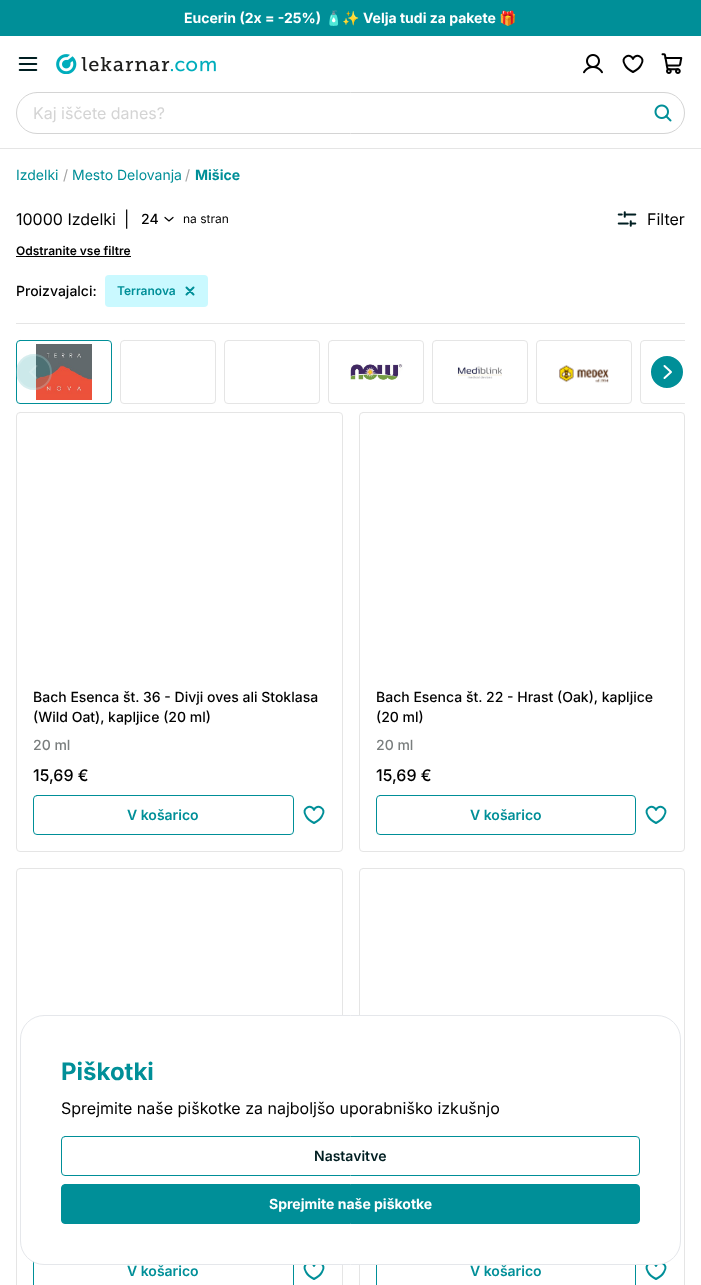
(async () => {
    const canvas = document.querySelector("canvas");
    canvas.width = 701;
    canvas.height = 1285;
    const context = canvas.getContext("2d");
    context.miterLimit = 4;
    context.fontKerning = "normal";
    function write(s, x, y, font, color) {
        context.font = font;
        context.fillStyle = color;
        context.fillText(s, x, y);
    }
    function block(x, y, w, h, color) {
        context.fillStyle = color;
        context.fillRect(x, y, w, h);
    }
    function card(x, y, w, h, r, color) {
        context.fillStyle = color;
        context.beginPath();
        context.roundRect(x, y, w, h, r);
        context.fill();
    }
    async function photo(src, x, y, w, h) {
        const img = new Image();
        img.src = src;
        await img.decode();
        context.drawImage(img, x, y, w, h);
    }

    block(0, 0, 701, 1285, "rgb(255, 255, 255)");
    block(0, 0, 701, 36, "rgb(0, 143, 152)");
    write("Eucerin (2x = -25%)", 184, 23, "bold 14px Inter", "rgb(255, 255, 255)");
    write("🧴✨", 325, 23, "bold 14px Noto Color Emoji", "rgb(255, 255, 255)");
    write("Velja tudi za pakete", 363, 23, "bold 14px Inter", "rgb(255, 255, 255)");
    write("🎁", 499, 23, "bold 14px Noto Color Emoji", "rgb(255, 255, 255)");
    block(0, 148, 701, 1, "rgb(229, 229, 229)");
    await photo("media/1.png", 18, 57, 20, 14);
    await photo("media/2.png", 56, 54, 160, 20);
    await photo("media/3.png", 583, 54, 20, 20);
    context.beginPath();
    context.moveTo(633, 72);
    context.bezierCurveTo(630, 70.5, 626.5, 68, 625, 65);
    context.bezierCurveTo(619.5, 57, 630.5, 52.5, 633, 59);
    context.bezierCurveTo(635.5, 52.5, 646.5, 57, 641, 65);
    context.bezierCurveTo(639.5, 68, 636, 70.5, 633, 72);
    context.closePath();
    context.strokeStyle = "rgb(0, 0, 0)";
    context.lineWidth = 2;
    context.lineCap = "round";
    context.lineJoin = "round";
    context.stroke();
    await photo("media/4.png", 661, 53, 22, 21);
    context.beginPath();
    context.roundRect(16.5, 92.5, 668, 41, 20.5);
    context.strokeStyle = "rgb(212, 212, 212)";
    context.lineWidth = 1;
    context.lineJoin = "miter";
    context.stroke();
    write("Kaj iščete danes?", 33, 119, "16px Inter", "rgb(212, 212, 212)");
    await photo("media/5.png", 654, 104, 18, 18);
    write("Izdelki", 16, 180, "14px Inter", "rgb(0, 143, 152)");
    write("/", 63, 180, "14px Inter", "rgb(163, 163, 163)");
    write("Mesto Delovanja", 72, 180, "14px Inter", "rgb(0, 143, 152)");
    write("/", 185, 180, "14px Inter", "rgb(163, 163, 163)");
    write("Mišice", 195, 180, "bold 14px Inter", "rgb(0, 143, 152)");
    write("10000 Izdelki", 16, 225, "16px Inter", "rgb(0, 0, 0)");
    write("|", 124, 225, "16px Inter", "rgb(0, 0, 0)");
    write("24", 141, 224, "500 14px Inter", "rgb(0, 0, 0)");
    context.beginPath();
    context.moveTo(173, 217.5);
    context.lineTo(169, 221);
    context.lineTo(165, 217.5);
    context.strokeStyle = "rgb(0, 0, 0)";
    context.lineWidth = 1.2;
    context.lineJoin = "round";
    context.stroke();
    write("na stran", 183, 223, "12px Inter", "rgb(0, 0, 0)");
    await photo("media/6.png", 617, 211, 20, 16);
    write("Filter", 647, 225, "16px Inter", "rgb(0, 0, 0)");
    write("Odstranite vse filtre", 16, 255, "600 12px Inter", "rgb(0, 0, 0)");
    block(16, 256, 115, 1, "rgb(0, 0, 0)");
    block(16, 323, 669, 1, "rgb(229, 229, 229)");
    write("Proizvajalci:", 16, 296, "500 14px Inter", "rgb(0, 0, 0)");
    card(105, 275, 103, 32, 4, "rgb(202, 249, 255)");
    write("Terranova", 117, 295, "600 12px Inter", "rgb(0, 143, 152)");
    context.beginPath();
    context.moveTo(193.5, 287.5);
    context.lineTo(186.5, 294.5);
    context.moveTo(193.5, 294.5);
    context.lineTo(186.5, 287.5);
    context.strokeStyle = "rgb(0, 143, 152)";
    context.lineWidth = 2;
    context.stroke();
    context.beginPath();
    context.roundRect(16.5, 340.5, 95, 63, 3.5);
    context.lineWidth = 1;
    context.lineJoin = "miter";
    context.stroke();
    await photo("media/7.png", 36, 344, 56, 56);
    context.beginPath();
    context.roundRect(120.5, 340.5, 95, 63, 3.5);
    context.strokeStyle = "rgb(229, 229, 229)";
    context.stroke();
    context.beginPath();
    context.roundRect(224.5, 340.5, 95, 63, 3.5);
    context.stroke();
    context.beginPath();
    context.roundRect(328.5, 340.5, 95, 63, 3.5);
    context.stroke();
    await photo("media/8.png", 350, 364, 53, 16);
    context.beginPath();
    context.roundRect(432.5, 340.5, 95, 63, 3.5);
    context.stroke();
    await photo("media/9.png", 457, 366, 45, 13);
    context.beginPath();
    context.roundRect(536.5, 340.5, 95, 63, 3.5);
    context.stroke();
    await photo("media/10.png", 559, 365, 50, 18);
    context.save();
    context.beginPath();
    context.rect(16, 340, 669, 64);
    context.clip();
    context.beginPath();
    context.roundRect(640.5, 340.5, 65, 63, 3.5);
    context.stroke();
    context.restore();
    context.fillStyle = "rgba(0, 143, 152, 0.2)";
    context.beginPath();
    context.moveTo(34, 390);
    context.bezierCurveTo(24, 390, 16, 382, 16, 372);
    context.bezierCurveTo(16, 362, 24, 354, 34, 354);
    context.bezierCurveTo(44, 354, 52, 362, 52, 372);
    context.bezierCurveTo(52, 382, 44, 390, 34, 390);
    context.closePath();
    context.fill();
    context.beginPath();
    context.moveTo(34, 389);
    context.bezierCurveTo(24.5, 389, 17, 381.5, 17, 372);
    context.bezierCurveTo(17, 362.5, 24.5, 355, 34, 355);
    context.bezierCurveTo(43.5, 355, 51, 362.5, 51, 372);
    context.bezierCurveTo(51, 381.5, 43.5, 389, 34, 389);
    context.closePath();
    context.strokeStyle = "rgba(255, 255, 255, 0.2)";
    context.lineWidth = 2;
    context.lineCap = "butt";
    context.stroke();
    context.beginPath();
    context.moveTo(36.5, 378);
    context.lineTo(30, 372);
    context.lineTo(36.5, 366);
    context.lineCap = "round";
    context.lineJoin = "round";
    context.stroke();
    context.fillStyle = "rgb(0, 143, 152)";
    context.beginPath();
    context.arc(667, 372, 17, 0, Math.PI * 2);
    context.fill();
    context.strokeStyle = "rgb(255, 255, 255)";
    context.stroke();
    context.beginPath();
    context.moveTo(664.5, 366);
    context.lineTo(671, 372);
    context.lineTo(664.5, 378);
    context.stroke();
    context.beginPath();
    context.roundRect(16.5, 412.5, 326, 439, 3.5);
    context.strokeStyle = "rgb(229, 229, 229)";
    context.lineWidth = 1;
    context.lineJoin = "miter";
    context.stroke();
    write("Bach Esenca št. 36 - Divji oves ali Stoklasa", 33, 702, "500 14px Inter", "rgb(0, 0, 0)");
    write("(Wild Oat), kapljice (20 ml)", 33, 722, "500 14px Inter", "rgb(0, 0, 0)");
    write("20 ml", 33, 750, "500 14px Inter", "rgb(122, 126, 126)");
    write("15,69 €", 33, 781, "500 16px Inter", "rgb(0, 0, 0)");
    context.beginPath();
    context.roundRect(33.5, 795.5, 260, 39, 3.5);
    context.strokeStyle = "rgb(0, 143, 152)";
    context.stroke();
    write("V košarico", 127, 820, "600 14px Inter", "rgb(0, 143, 152)");
    context.beginPath();
    context.moveTo(314, 823);
    context.bezierCurveTo(311, 821.5, 307.5, 819, 306, 816);
    context.bezierCurveTo(300.5, 808, 311.5, 803.5, 314, 810);
    context.bezierCurveTo(316.5, 803.5, 327.5, 808, 322, 816);
    context.bezierCurveTo(320.5, 819, 317, 821.5, 314, 823);
    context.closePath();
    context.lineWidth = 2;
    context.lineJoin = "round";
    context.stroke();
    context.beginPath();
    context.roundRect(359.5, 412.5, 325, 439, 3.5);
    context.strokeStyle = "rgb(229, 229, 229)";
    context.lineWidth = 1;
    context.lineJoin = "miter";
    context.stroke();
    write("Bach Esenca št. 22 - Hrast (Oak), kapljice", 376, 702, "500 14px Inter", "rgb(0, 0, 0)");
    write("(20 ml)", 376, 722, "500 14px Inter", "rgb(0, 0, 0)");
    write("20 ml", 376, 750, "500 14px Inter", "rgb(122, 126, 126)");
    write("15,69 €", 376, 781, "500 16px Inter", "rgb(0, 0, 0)");
    context.beginPath();
    context.roundRect(376.5, 795.5, 259, 39, 3.5);
    context.strokeStyle = "rgb(0, 143, 152)";
    context.stroke();
    write("V košarico", 470, 820, "600 14px Inter", "rgb(0, 143, 152)");
    context.beginPath();
    context.moveTo(656, 823);
    context.bezierCurveTo(653, 821.5, 649.5, 819, 648, 816);
    context.bezierCurveTo(642.5, 808, 653.5, 803.5, 656, 810);
    context.bezierCurveTo(658.5, 803.5, 669.5, 808, 664, 816);
    context.bezierCurveTo(662.5, 819, 659, 821.5, 656, 823);
    context.closePath();
    context.lineWidth = 2;
    context.lineJoin = "round";
    context.stroke();
    context.beginPath();
    context.roundRect(16.5, 868.5, 326, 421, 3.5);
    context.strokeStyle = "rgb(229, 229, 229)";
    context.lineWidth = 1;
    context.lineJoin = "miter";
    context.stroke();
    context.strokeStyle = "rgb(0, 143, 152)";
    context.strokeRect(33.5, 1251.5, 260, 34);
    write("V košarico", 127, 1276, "600 14px Inter", "rgb(0, 143, 152)");
    context.beginPath();
    context.moveTo(314, 1279);
    context.bezierCurveTo(311, 1277.5, 307.5, 1275, 306, 1272);
    context.bezierCurveTo(300.5, 1264, 311.5, 1259.5, 314, 1266);
    context.bezierCurveTo(316.5, 1259.5, 327.5, 1264, 322, 1272);
    context.bezierCurveTo(320.5, 1275, 317, 1277.5, 314, 1279);
    context.closePath();
    context.lineWidth = 2;
    context.lineJoin = "round";
    context.stroke();
    context.beginPath();
    context.roundRect(359.5, 868.5, 325, 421, 3.5);
    context.strokeStyle = "rgb(229, 229, 229)";
    context.lineWidth = 1;
    context.lineJoin = "miter";
    context.stroke();
    context.strokeStyle = "rgb(0, 143, 152)";
    context.strokeRect(376.5, 1251.5, 259, 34);
    write("V košarico", 470, 1276, "600 14px Inter", "rgb(0, 143, 152)");
    context.beginPath();
    context.moveTo(656, 1279);
    context.bezierCurveTo(653, 1277.5, 649.5, 1275, 648, 1272);
    context.bezierCurveTo(642.5, 1264, 653.5, 1259.5, 656, 1266);
    context.bezierCurveTo(658.5, 1259.5, 669.5, 1264, 664, 1272);
    context.bezierCurveTo(662.5, 1275, 659, 1277.5, 656, 1279);
    context.closePath();
    context.lineWidth = 2;
    context.lineJoin = "round";
    context.stroke();
    context.fillStyle = "rgb(255, 255, 255)";
    context.beginPath();
    context.roundRect(20.5, 1015.5, 660, 249, 23.5);
    context.fill();
    context.strokeStyle = "rgb(229, 231, 235)";
    context.lineWidth = 1;
    context.lineJoin = "miter";
    context.stroke();
    write("Piškotki", 61, 1080, "bold 24px Inter", "rgb(0, 143, 152)");
    write("Sprejmite naše piškotke za najboljšo uporabniško izkušnjo", 61, 1114, "16px Inter", "rgb(0, 0, 0)");
    context.beginPath();
    context.roundRect(61.5, 1136.5, 578, 39, 3.5);
    context.strokeStyle = "rgb(0, 143, 152)";
    context.stroke();
    write("Nastavitve", 314, 1161, "600 14px Inter", "rgb(0, 30, 33)");
    context.fillStyle = "rgb(0, 143, 152)";
    context.beginPath();
    context.roundRect(61.5, 1184.5, 578, 39, 3.5);
    context.fill();
    context.stroke();
    write("Sprejmite naše piškotke", 269, 1209, "bold 14px Inter", "rgb(255, 255, 255)");
})();
